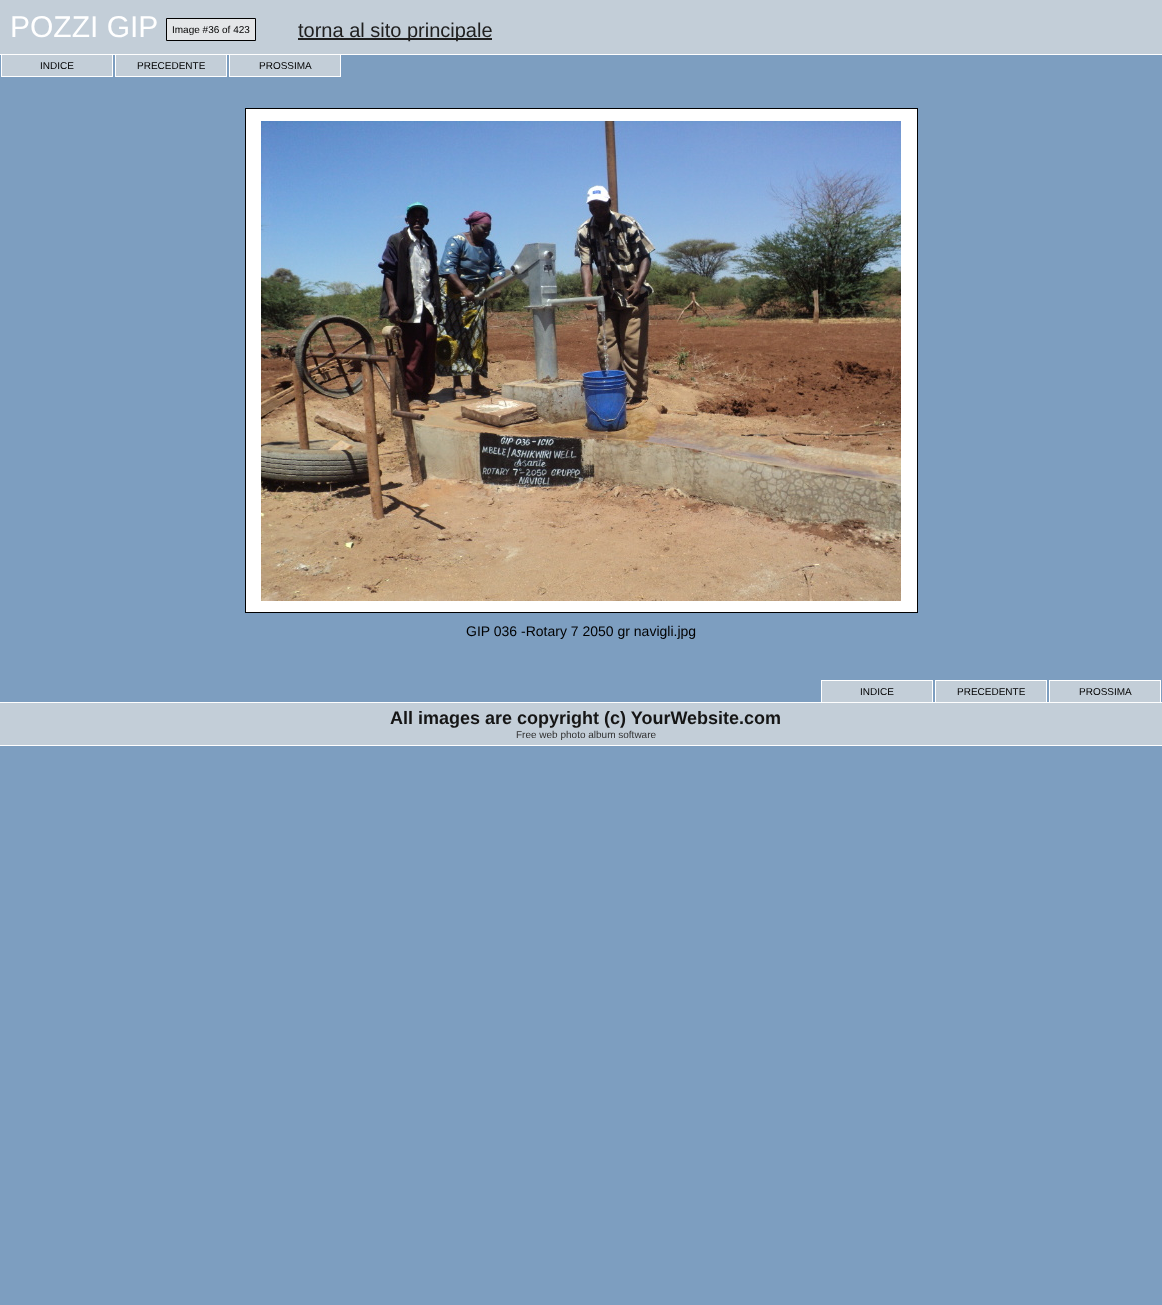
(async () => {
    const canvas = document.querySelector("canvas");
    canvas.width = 1162;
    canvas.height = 1305;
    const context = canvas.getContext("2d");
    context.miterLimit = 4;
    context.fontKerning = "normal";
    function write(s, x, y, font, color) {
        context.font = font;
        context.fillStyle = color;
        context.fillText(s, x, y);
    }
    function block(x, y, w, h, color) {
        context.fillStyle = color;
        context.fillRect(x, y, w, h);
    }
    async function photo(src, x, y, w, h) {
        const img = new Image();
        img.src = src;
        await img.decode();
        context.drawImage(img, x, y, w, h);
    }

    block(0, 0, 1162, 1305, "rgb(125, 158, 192)");
    block(0, 0, 1162, 54, "rgb(195, 206, 216)");
    block(0, 54, 1162, 1, "rgb(255, 255, 255)");
    write("POZZI GIP", 10, 37, "30px Liberation Sans", "rgb(255, 255, 255)");
    context.fillStyle = "rgb(228, 230, 232)";
    context.beginPath();
    context.rect(166.5, 18.5, 89, 22);
    context.fill();
    context.strokeStyle = "rgb(0, 0, 0)";
    context.stroke();
    write("Image #36 of 423", 172, 33, "10px Liberation Sans", "rgb(0, 0, 0)");
    block(298, 38, 194, 2, "rgb(32, 32, 32)");
    write("torna al sito principale", 298, 37, "20px Liberation Sans", "rgb(32, 32, 32)");
    block(2, 55, 110, 21, "rgb(195, 206, 216)");
    block(112, 55, 1, 22, "rgb(255, 255, 255)");
    block(1, 76, 112, 1, "rgb(255, 255, 255)");
    block(1, 55, 1, 22, "rgb(255, 255, 255)");
    write("INDICE", 40, 69, "10px Liberation Sans", "rgb(0, 0, 0)");
    block(116, 55, 110, 21, "rgb(195, 206, 216)");
    block(226, 55, 1, 22, "rgb(255, 255, 255)");
    block(115, 76, 112, 1, "rgb(255, 255, 255)");
    block(115, 55, 1, 22, "rgb(255, 255, 255)");
    write("PRECEDENTE", 137, 69, "10px Liberation Sans", "rgb(0, 0, 0)");
    block(230, 55, 110, 21, "rgb(195, 206, 216)");
    block(340, 55, 1, 22, "rgb(255, 255, 255)");
    block(229, 76, 112, 1, "rgb(255, 255, 255)");
    block(229, 55, 1, 22, "rgb(255, 255, 255)");
    write("PROSSIMA", 259, 69, "10px Liberation Sans", "rgb(0, 0, 0)");
    block(245, 108, 673, 505, "rgb(0, 0, 0)");
    block(246, 109, 671, 503, "rgb(255, 255, 255)");
    await photo("media/1.png", 261, 121, 640, 480);
    write("GIP 036 -Rotary 7 2050 gr navigli.jpg", 466, 636, "14px Liberation Sans", "rgb(0, 0, 0)");
    block(822, 681, 110, 21, "rgb(195, 206, 216)");
    block(821, 680, 112, 1, "rgb(255, 255, 255)");
    block(932, 680, 1, 22, "rgb(255, 255, 255)");
    block(821, 680, 1, 22, "rgb(255, 255, 255)");
    write("INDICE", 860, 695, "10px Liberation Sans", "rgb(0, 0, 0)");
    block(936, 681, 110, 21, "rgb(195, 206, 216)");
    block(935, 680, 112, 1, "rgb(255, 255, 255)");
    block(1046, 680, 1, 22, "rgb(255, 255, 255)");
    block(935, 680, 1, 22, "rgb(255, 255, 255)");
    write("PRECEDENTE", 957, 695, "10px Liberation Sans", "rgb(0, 0, 0)");
    block(1050, 681, 110, 21, "rgb(195, 206, 216)");
    block(1049, 680, 112, 1, "rgb(255, 255, 255)");
    block(1160, 680, 1, 22, "rgb(255, 255, 255)");
    block(1049, 680, 1, 22, "rgb(255, 255, 255)");
    write("PROSSIMA", 1079, 695, "10px Liberation Sans", "rgb(0, 0, 0)");
    block(0, 703, 1162, 42, "rgb(195, 206, 216)");
    block(0, 702, 1162, 1, "rgb(255, 255, 255)");
    block(0, 745, 1162, 1, "rgb(255, 255, 255)");
    write("All images are copyright (c) YourWebsite.com", 390, 724, "bold 18px Liberation Sans", "rgb(21, 21, 21)");
    write("Free web photo album software", 516, 738, "10px Liberation Sans", "rgb(48, 48, 48)");
})();
